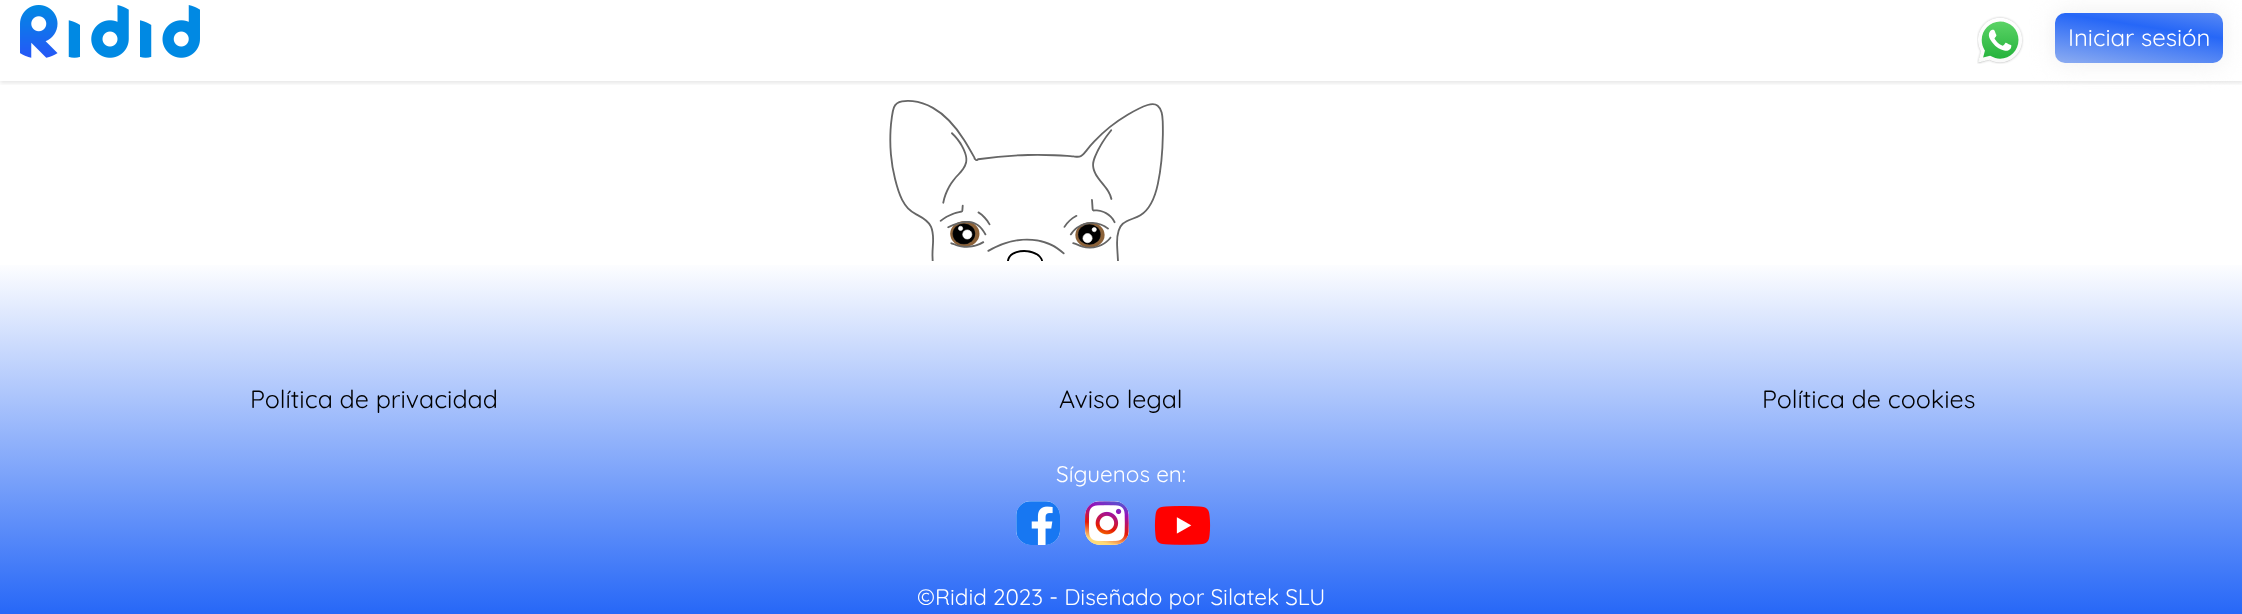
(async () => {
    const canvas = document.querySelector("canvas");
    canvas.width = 2242;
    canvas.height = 614;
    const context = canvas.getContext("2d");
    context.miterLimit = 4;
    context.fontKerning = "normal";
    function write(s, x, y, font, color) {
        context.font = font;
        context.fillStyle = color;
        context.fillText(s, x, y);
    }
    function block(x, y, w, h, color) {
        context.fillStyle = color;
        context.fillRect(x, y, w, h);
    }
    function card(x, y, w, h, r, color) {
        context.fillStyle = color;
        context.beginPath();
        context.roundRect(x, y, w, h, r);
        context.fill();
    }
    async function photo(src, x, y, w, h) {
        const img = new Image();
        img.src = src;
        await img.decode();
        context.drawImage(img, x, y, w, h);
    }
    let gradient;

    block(0, 0, 2242, 614, "rgb(255, 255, 255)");
    context.save();
    context.beginPath();
    context.rect(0, 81, 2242, 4);
    context.clip();
    context.fillStyle = "rgba(0, 0, 0, 0.1)";
    context.filter = "blur(2px)";
    context.beginPath();
    context.rect(0, 1, 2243, 82);
    context.fill();
    context.filter = "none";
    context.restore();
    await photo("media/1.png", 20, 5, 180, 53);
    await photo("media/2.png", 1977, 16, 47, 48);
    context.fillStyle = "rgb(238, 238, 238)";
    context.filter = "blur(12.5px)";
    context.beginPath();
    context.roundRect(2055, 13, 168, 50, 10);
    context.fill();
    context.filter = "none";
    gradient = context.createLinearGradient(2230, -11, 2215, 86);
    gradient.addColorStop(0, "rgb(137, 170, 241)");
    gradient.addColorStop(0.51, "rgb(38, 103, 247)");
    gradient.addColorStop(1, "rgb(137, 170, 241)");
    context.fillStyle = gradient;
    context.beginPath();
    context.roundRect(2055, 13, 168, 50, 10);
    context.fill();
    write("Iniciar sesión", 2068, 46, "24px Quicksand", "rgb(255, 255, 255)");
    await photo("media/3.png", 889, 100, 275, 161);
    gradient = context.createLinearGradient(1121, 261, 1121, 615);
    gradient.addColorStop(0, "rgb(255, 255, 255)");
    gradient.addColorStop(1, "rgb(38, 103, 247)");
    context.fillStyle = gradient;
    context.fillRect(0, 265, 2242, 349);
    write("Política de privacidad", 250, 408, "25px Quicksand", "rgb(0, 0, 0)");
    write("Aviso legal", 1059, 408, "25px Quicksand", "rgb(0, 0, 0)");
    write("Política de cookies", 1762, 408, "25px Quicksand", "rgb(0, 0, 0)");
    write("Síguenos en:", 1056, 482, "22.5px Quicksand", "rgb(255, 255, 255)");
    card(1016, 501, 44, 44, 15, "rgb(255, 255, 255)");
    await photo("media/4.png", 1016, 501, 44, 44);
    card(1085, 501, 44, 44, 15, "rgb(255, 255, 255)");
    await photo("media/5.png", 1085, 501, 44, 44);
    await photo("media/6.png", 1154, 506, 57, 39);
    write("©Ridid 2023 - Diseñado por Silatek SLU", 917, 605, "22.5px Quicksand", "rgb(255, 255, 255)");
})();
